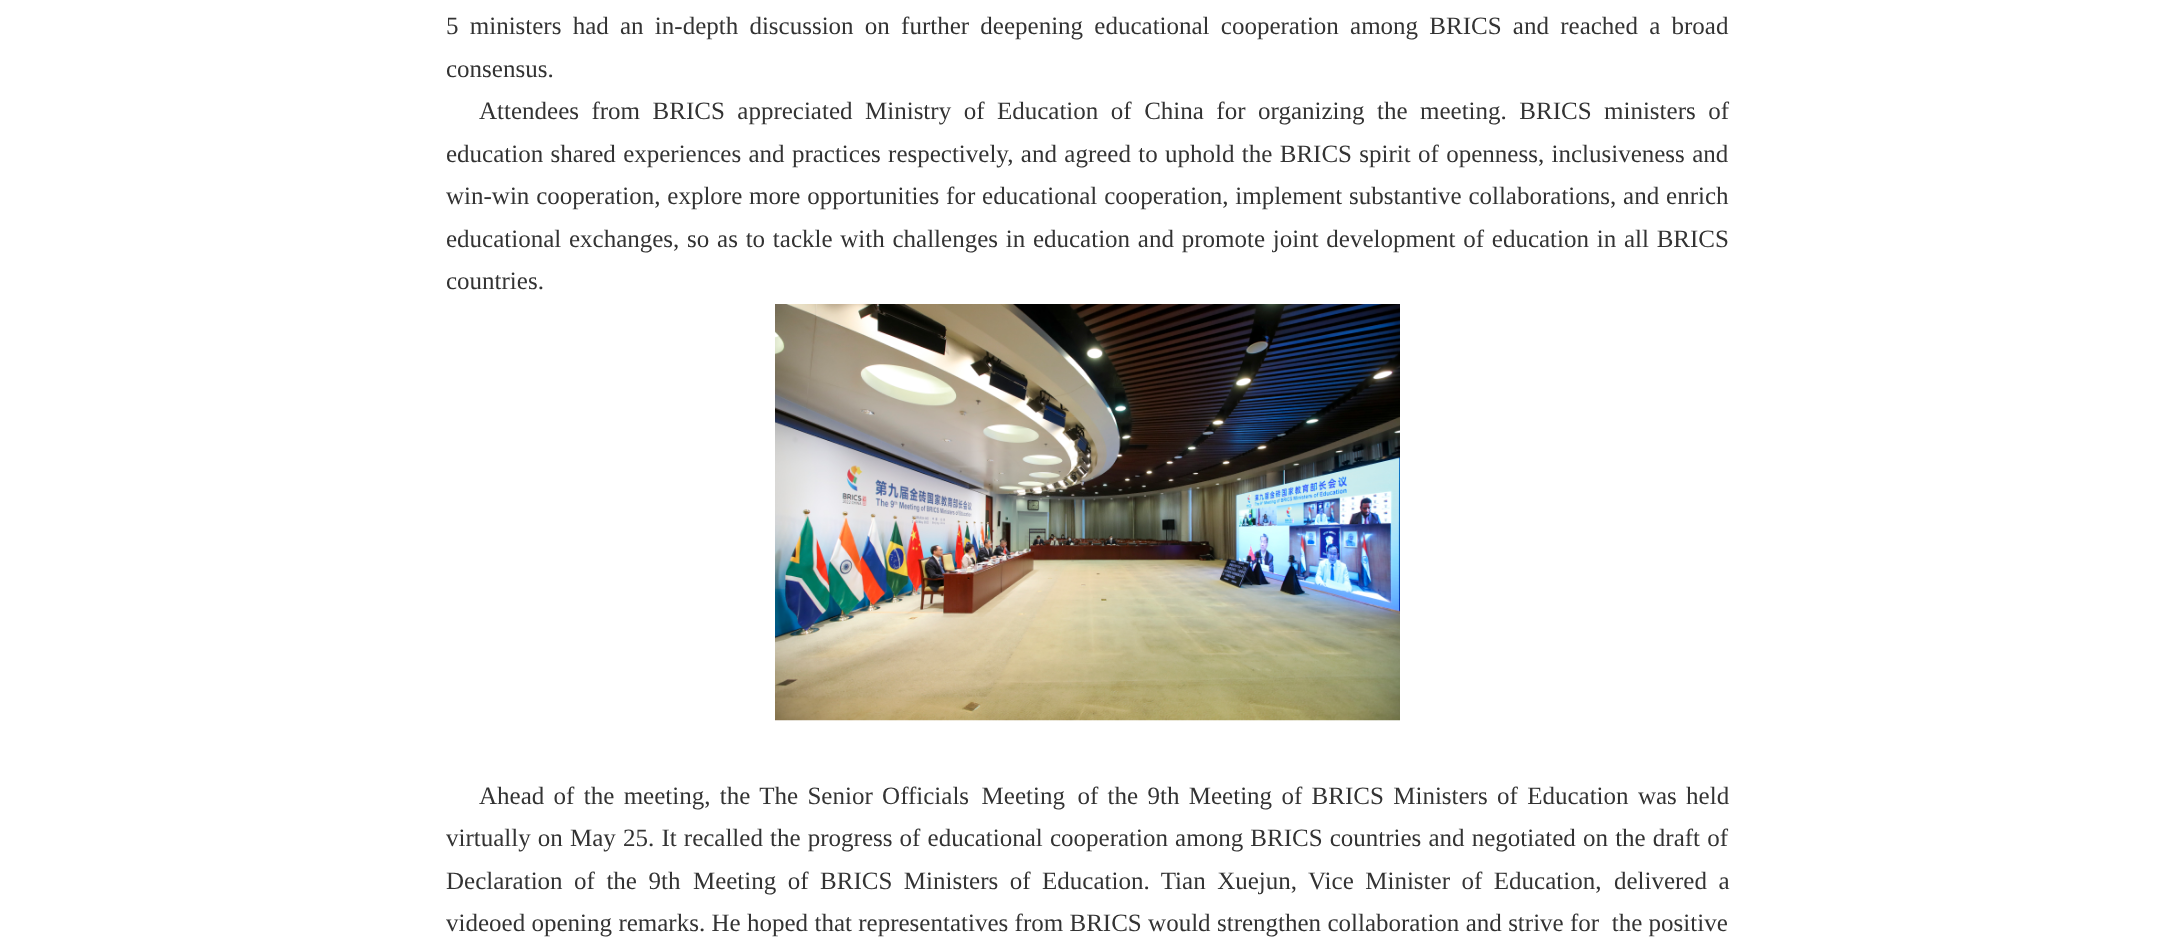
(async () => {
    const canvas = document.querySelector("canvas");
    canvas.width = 2175;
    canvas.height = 939;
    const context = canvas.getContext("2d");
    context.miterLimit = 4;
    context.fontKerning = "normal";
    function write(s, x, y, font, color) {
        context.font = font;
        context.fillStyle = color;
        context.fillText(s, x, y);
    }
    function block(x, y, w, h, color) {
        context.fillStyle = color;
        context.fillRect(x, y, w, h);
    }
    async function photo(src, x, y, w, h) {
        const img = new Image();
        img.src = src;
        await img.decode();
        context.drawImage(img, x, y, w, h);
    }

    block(0, 0, 2175, 939, "rgb(255, 255, 255)");
    context.wordSpacing = "5px";
    write("5 ministers had an in-depth discussion on further deepening educational cooperation among BRICS and reached a broad", 446, 34, "25px Liberation Serif", "rgb(51, 51, 51)");
    context.wordSpacing = "0px";
    write("consensus.", 446, 77, "25px Liberation Serif", "rgb(51, 51, 51)");
    context.wordSpacing = "6.25px";
    write("Attendees from BRICS appreciated Ministry of Education of China for organizing the meeting. BRICS ministers of", 479, 119, "25px Liberation Serif", "rgb(51, 51, 51)");
    context.wordSpacing = "1.1px";
    write("education shared experiences and practices respectively, and agreed to uphold the BRICS spirit of openness, inclusiveness and", 446, 162, "25px Liberation Serif", "rgb(51, 51, 51)");
    context.wordSpacing = "0.6px";
    write("win-win cooperation, explore more opportunities for educational cooperation, implement substantive collaborations, and enrich", 446, 204, "25px Liberation Serif", "rgb(51, 51, 51)");
    context.wordSpacing = "1.5px";
    write("educational exchanges, so as to tackle with challenges in education and promote joint development of education in all BRICS", 446, 247, "25px Liberation Serif", "rgb(51, 51, 51)");
    context.wordSpacing = "0px";
    write("countries.", 446, 289, "25px Liberation Serif", "rgb(51, 51, 51)");
    await photo("media/1.png", 775, 304, 625, 417);
    context.wordSpacing = "3.1px";
    write("Ahead of the meeting, the The Senior Officials Meeting of the 9th Meeting of BRICS Ministers of Education was held", 479, 804, "25px Liberation Serif", "rgb(51, 51, 51)");
    context.wordSpacing = "0.9px";
    write("virtually on May 25. It recalled the progress of educational cooperation among BRICS countries and negotiated on the draft of", 446, 846, "25px Liberation Serif", "rgb(51, 51, 51)");
    context.wordSpacing = "5.25px";
    write("Declaration of the 9th Meeting of BRICS Ministers of Education. Tian Xuejun, Vice Minister of Education, delivered a", 446, 889, "25px Liberation Serif", "rgb(51, 51, 51)");
    context.wordSpacing = "0.1px";
    write("videoed opening remarks. He hoped that representatives from BRICS would strengthen collaboration and strive for the positive", 446, 931, "25px Liberation Serif", "rgb(51, 51, 51)");
})();
